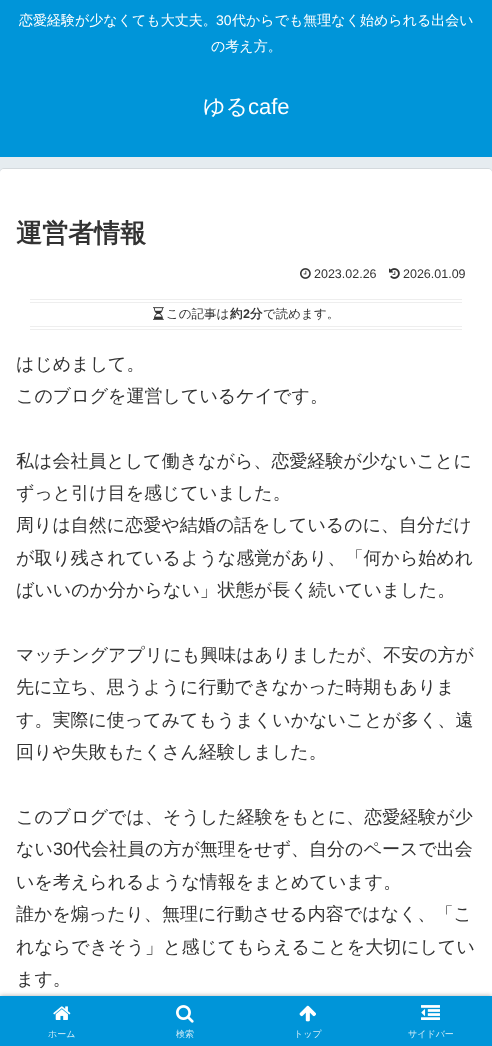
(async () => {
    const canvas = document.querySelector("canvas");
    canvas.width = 492;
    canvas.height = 1046;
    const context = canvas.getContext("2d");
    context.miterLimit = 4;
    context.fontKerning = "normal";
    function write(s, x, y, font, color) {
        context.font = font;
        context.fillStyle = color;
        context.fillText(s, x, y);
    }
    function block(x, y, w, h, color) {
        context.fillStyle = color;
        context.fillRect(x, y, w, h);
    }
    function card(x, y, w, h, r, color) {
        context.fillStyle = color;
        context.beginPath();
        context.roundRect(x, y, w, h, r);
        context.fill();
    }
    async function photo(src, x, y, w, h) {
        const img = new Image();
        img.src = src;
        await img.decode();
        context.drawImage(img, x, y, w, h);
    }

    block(0, 0, 492, 1046, "rgb(230, 236, 240)");
    block(0, 0, 492, 157, "rgb(0, 149, 217)");
    write("恋愛経験が少なくても大丈夫。", 19, 25, "500 14px WenQuanYi Zen Hei", "rgb(255, 255, 255)");
    write("30", 216, 25, "14px Liberation Sans", "rgb(255, 255, 255)");
    write("代からでも無理なく始められる出会い", 232, 25, "500 14px WenQuanYi Zen Hei", "rgb(255, 255, 255)");
    write("の考え方。", 211, 51, "500 14px WenQuanYi Zen Hei", "rgb(255, 255, 255)");
    write("ゆる", 203, 114, "500 22px WenQuanYi Zen Hei", "rgb(255, 255, 255)");
    write("cafe", 248, 114, "22px Liberation Sans", "rgb(255, 255, 255)");
    context.beginPath();
    context.roundRect(-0.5, 168.5, 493, 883, 4.5);
    context.strokeStyle = "rgb(212, 217, 221)";
    context.stroke();
    card(0, 169, 492, 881, 4, "rgb(255, 255, 255)");
    write("運営者情報", 16, 242, "bold 26px WenQuanYi Zen Hei", "rgb(51, 51, 51)");
    await photo("media/1.png", 300, 268, 11, 11);
    write("2023.02.26", 314, 278, "12.5px Liberation Sans", "rgb(51, 51, 51)");
    await photo("media/2.png", 389, 268, 11, 11);
    write("2026.01.09", 403, 278, "12.5px Liberation Sans", "rgb(51, 51, 51)");
    block(30, 299, 432, 1, "rgb(238, 238, 238)");
    block(30, 302, 432, 1, "rgb(238, 238, 238)");
    block(30, 326, 432, 1, "rgb(238, 238, 238)");
    block(30, 329, 432, 1, "rgb(238, 238, 238)");
    await photo("media/3.png", 153, 307, 11, 13);
    write("この記事は", 166, 318, "500 12.5px WenQuanYi Zen Hei", "rgb(51, 51, 51)");
    write("約", 230, 318, "bold 12.5px WenQuanYi Zen Hei", "rgb(51, 51, 51)");
    write("2", 243, 318, "bold 12.5px Liberation Sans", "rgb(51, 51, 51)");
    write("分", 250, 318, "bold 12.5px WenQuanYi Zen Hei", "rgb(51, 51, 51)");
    write("で読めます。", 263, 318, "500 12.5px WenQuanYi Zen Hei", "rgb(51, 51, 51)");
    write("はじめまして。", 16, 370, "500 18px WenQuanYi Zen Hei", "rgb(51, 51, 51)");
    write("このブログを運営しているケイです。", 16, 402, "500 18px WenQuanYi Zen Hei", "rgb(51, 51, 51)");
    write("私は会社員として働きながら、恋愛経験が少ないことに", 16, 467, "500 18px WenQuanYi Zen Hei", "rgb(51, 51, 51)");
    write("ずっと引け目を感じていました。", 16, 499, "500 18px WenQuanYi Zen Hei", "rgb(51, 51, 51)");
    write("周りは自然に恋愛や結婚の話をしているのに、自分だけ", 16, 531, "500 18px WenQuanYi Zen Hei", "rgb(51, 51, 51)");
    write("が取り残されているような感覚があり、「何から始めれ", 16, 564, "500 18px WenQuanYi Zen Hei", "rgb(51, 51, 51)");
    write("ばいいのか分からない」状態が長く続いていました。", 16, 596, "500 18px WenQuanYi Zen Hei", "rgb(51, 51, 51)");
    write("マッチングアプリにも興味はありましたが、不安の方が", 16, 661, "500 18px WenQuanYi Zen Hei", "rgb(51, 51, 51)");
    write("先に立ち、思うように行動できなかった時期もありま", 16, 693, "500 18px WenQuanYi Zen Hei", "rgb(51, 51, 51)");
    write("す。実際に使ってみてもうまくいかないことが多く、遠", 16, 726, "500 18px WenQuanYi Zen Hei", "rgb(51, 51, 51)");
    write("回りや失敗もたくさん経験しました。", 16, 758, "500 18px WenQuanYi Zen Hei", "rgb(51, 51, 51)");
    write("このブログでは、そうした経験をもとに、恋愛経験が少", 16, 823, "500 18px WenQuanYi Zen Hei", "rgb(51, 51, 51)");
    write("ない", 16, 855, "500 18px WenQuanYi Zen Hei", "rgb(51, 51, 51)");
    write("30", 53, 855, "18px Liberation Sans", "rgb(51, 51, 51)");
    write("代会社員の方が無理をせず、自分のペースで出会", 73, 855, "500 18px WenQuanYi Zen Hei", "rgb(51, 51, 51)");
    write("いを考えられるような情報をまとめています。", 16, 888, "500 18px WenQuanYi Zen Hei", "rgb(51, 51, 51)");
    write("誰かを煽ったり、無理に行動させる内容ではなく、「こ", 16, 920, "500 18px WenQuanYi Zen Hei", "rgb(51, 51, 51)");
    write("れならできそう」と感じてもらえることを大切にしてい", 16, 953, "500 18px WenQuanYi Zen Hei", "rgb(51, 51, 51)");
    write("ます。", 16, 985, "500 18px WenQuanYi Zen Hei", "rgb(51, 51, 51)");
    context.fillStyle = "rgb(169, 169, 169)";
    context.filter = "blur(2.5px)";
    context.beginPath();
    context.rect(0, 996, 492, 50);
    context.fill();
    context.filter = "none";
    block(0, 996, 492, 50, "rgb(0, 149, 217)");
    await photo("media/4.png", 53, 1006, 18, 14);
    write("ホーム", 48, 1037, "500 9px WenQuanYi Zen Hei", "rgb(204, 234, 247)");
    await photo("media/5.png", 176, 1005, 18, 18);
    write("検索", 176, 1037, "500 9px WenQuanYi Zen Hei", "rgb(204, 234, 247)");
    await photo("media/6.png", 299, 1005, 17, 17);
    write("トップ", 294, 1037, "500 9px WenQuanYi Zen Hei", "rgb(204, 234, 247)");
    await photo("media/7.png", 421, 1005, 19, 15);
    write("サイドバー", 408, 1037, "500 9px WenQuanYi Zen Hei", "rgb(204, 234, 247)");
})();
